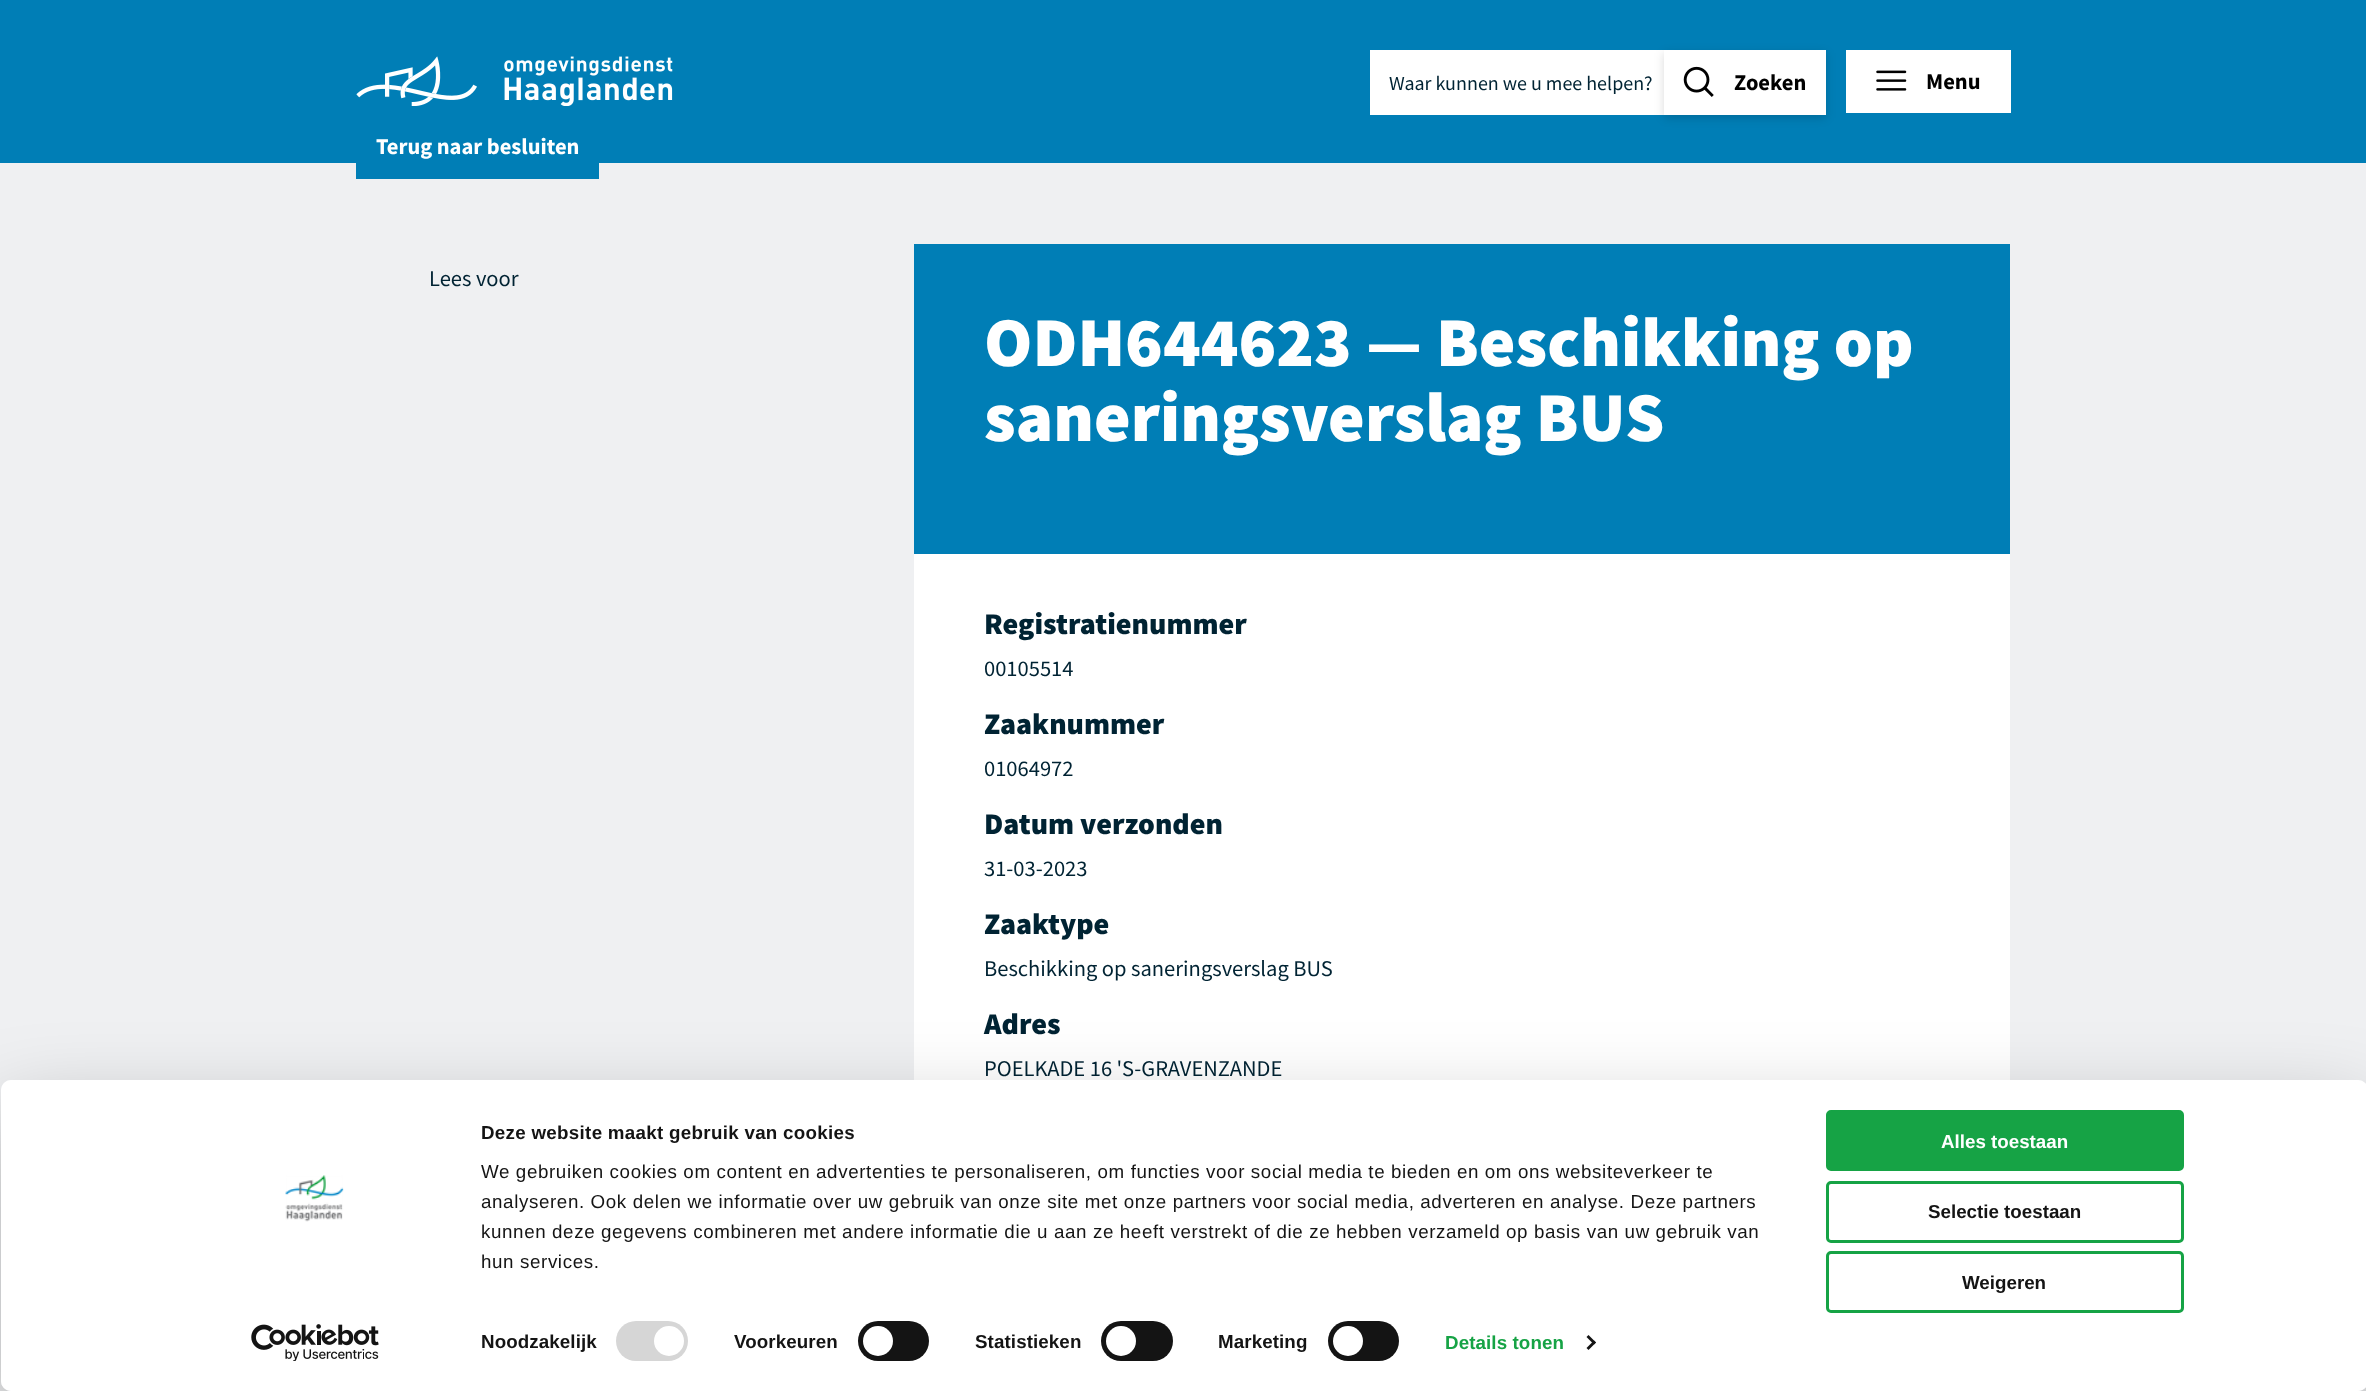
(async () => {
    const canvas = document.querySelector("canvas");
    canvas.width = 2366;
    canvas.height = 1391;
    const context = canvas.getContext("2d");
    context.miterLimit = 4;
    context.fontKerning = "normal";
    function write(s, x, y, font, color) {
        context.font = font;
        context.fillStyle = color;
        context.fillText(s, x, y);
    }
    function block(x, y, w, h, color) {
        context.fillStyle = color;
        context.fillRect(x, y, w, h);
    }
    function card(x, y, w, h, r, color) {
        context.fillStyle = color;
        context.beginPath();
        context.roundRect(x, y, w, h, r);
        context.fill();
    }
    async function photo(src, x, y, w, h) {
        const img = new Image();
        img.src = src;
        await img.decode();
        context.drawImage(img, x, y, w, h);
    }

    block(0, 0, 2366, 1391, "rgb(239, 240, 242)");
    block(0, 0, 2366, 163, "rgb(0, 126, 182)");
    await photo("media/1.png", 356, 56, 317, 50);
    block(1370, 50, 456, 65, "rgb(255, 255, 255)");
    write("Waar kunnen we u mee helpen?", 1389, 90, "20px Source Sans Pro", "rgb(0, 35, 51)");
    context.save();
    context.beginPath();
    context.moveTo(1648, 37);
    context.lineTo(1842, 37);
    context.lineTo(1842, 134);
    context.lineTo(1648, 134);
    context.closePath();
    context.moveTo(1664, 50);
    context.lineTo(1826, 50);
    context.lineTo(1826, 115);
    context.lineTo(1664, 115);
    context.closePath();
    context.clip("evenodd");
    context.fillStyle = "rgba(0, 0, 0, 0.15)";
    context.filter = "blur(5px)";
    context.beginPath();
    context.rect(1664, 53, 162, 65);
    context.fill();
    context.filter = "none";
    context.restore();
    await photo("media/2.png", 1683, 66, 31, 31);
    write("Zoeken", 1734, 90, "bold 22.5px Source Sans Pro", "rgb(0, 0, 0)");
    block(1846, 50, 165, 63, "rgb(255, 255, 255)");
    await photo("media/3.png", 1876, 70, 31, 21);
    write("Menu", 1926, 89, "bold 22.5px Source Sans Pro", "rgb(0, 0, 0)");
    block(356, 163, 243, 16, "rgb(0, 126, 182)");
    write("Terug naar besluiten", 376, 154, "bold 22.5px Source Sans Pro", "rgb(255, 255, 255)");
    write("Lees voor", 429, 286, "22.5px Source Sans Pro", "rgb(0, 35, 51)");
    block(914, 244, 1096, 310, "rgb(0, 126, 182)");
    write("ODH644623 — Beschikking op", 984, 366, "900 70px Source Sans Pro", "rgb(255, 255, 255)");
    write("saneringsverslag BUS", 984, 441, "900 70px Source Sans Pro", "rgb(255, 255, 255)");
    block(914, 554, 1096, 526, "rgb(255, 255, 255)");
    write("Registratienummer", 984, 634, "900 30px Source Sans Pro", "rgb(0, 35, 51)");
    write("00105514", 984, 676, "22.5px Source Sans Pro", "rgb(0, 35, 51)");
    write("Zaaknummer", 984, 734, "900 30px Source Sans Pro", "rgb(0, 35, 51)");
    write("01064972", 984, 776, "22.5px Source Sans Pro", "rgb(0, 35, 51)");
    write("Datum verzonden", 984, 834, "900 30px Source Sans Pro", "rgb(0, 35, 51)");
    write("31-03-2023", 984, 876, "22.5px Source Sans Pro", "rgb(0, 35, 51)");
    write("Zaaktype", 984, 934, "900 30px Source Sans Pro", "rgb(0, 35, 51)");
    write("Beschikking op saneringsverslag BUS", 984, 976, "22.5px Source Sans Pro", "rgb(0, 35, 51)");
    write("Adres", 984, 1034, "900 30px Source Sans Pro", "rgb(0, 35, 51)");
    write("POELKADE 16 'S-GRAVENZANDE", 984, 1076, "22.5px Source Sans Pro", "rgb(0, 35, 51)");
    context.save();
    context.beginPath();
    context.moveTo(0, 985);
    context.lineTo(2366, 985);
    context.lineTo(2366, 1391);
    context.lineTo(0, 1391);
    context.closePath();
    context.moveTo(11, 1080);
    context.lineTo(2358, 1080);
    context.bezierCurveTo(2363.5, 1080, 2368, 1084.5, 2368, 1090);
    context.lineTo(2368, 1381);
    context.bezierCurveTo(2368, 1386.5, 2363.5, 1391, 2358, 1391);
    context.lineTo(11, 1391);
    context.bezierCurveTo(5.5, 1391, 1, 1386.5, 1, 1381);
    context.lineTo(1, 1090);
    context.bezierCurveTo(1, 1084.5, 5.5, 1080, 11, 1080);
    context.closePath();
    context.clip("evenodd");
    context.fillStyle = "rgba(0, 0, 0, 0.3)";
    context.filter = "blur(44px)";
    context.beginPath();
    context.roundRect(1, 1118, 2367, 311, 10);
    context.fill();
    context.filter = "none";
    context.restore();
    card(1, 1080, 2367, 311, 10, "rgb(255, 255, 255)");
    await photo("media/4.png", 285, 1175, 59, 47);
    await photo("media/5.png", 251, 1324, 128, 37);
    context.letterSpacing = "0.3px";
    write("Deze website maakt gebruik van cookies", 481, 1139, "bold 18.75px Liberation Sans", "rgb(20, 20, 20)");
    context.letterSpacing = "0.62px";
    write("We gebruiken cookies om content en advertenties te personaliseren, om functies voor social media te bieden en om ons websiteverkeer te", 481, 1178, "18.75px Liberation Sans", "rgb(20, 20, 20)");
    write("analyseren. Ook delen we informatie over uw gebruik van onze site met onze partners voor social media, adverteren en analyse. Deze partners", 481, 1208, "18.75px Liberation Sans", "rgb(20, 20, 20)");
    write("kunnen deze gegevens combineren met andere informatie die u aan ze heeft verstrekt of die ze hebben verzameld op basis van uw gebruik van", 481, 1238, "18.75px Liberation Sans", "rgb(20, 20, 20)");
    write("hun services.", 481, 1268, "18.75px Liberation Sans", "rgb(20, 20, 20)");
    context.letterSpacing = "0.1px";
    write("Noodzakelijk", 481, 1348, "bold 18.75px Liberation Sans", "rgb(20, 20, 20)");
    card(616, 1321, 72, 40, 20, "rgb(214, 214, 214)");
    context.fillStyle = "rgb(255, 255, 255)";
    context.beginPath();
    context.arc(669, 1341, 15, 0, Math.PI * 2);
    context.fill();
    write("Voorkeuren", 734, 1348, "bold 18.75px Liberation Sans", "rgb(20, 20, 20)");
    card(858, 1321, 71, 40, 20, "rgb(20, 20, 20)");
    context.fillStyle = "rgb(255, 255, 255)";
    context.beginPath();
    context.arc(878, 1341, 15, 0, Math.PI * 2);
    context.fill();
    write("Statistieken", 975, 1348, "bold 18.75px Liberation Sans", "rgb(20, 20, 20)");
    card(1101, 1321, 72, 40, 20, "rgb(20, 20, 20)");
    context.fillStyle = "rgb(255, 255, 255)";
    context.beginPath();
    context.arc(1121, 1341, 15, 0, Math.PI * 2);
    context.fill();
    write("Marketing", 1218, 1348, "bold 18.75px Liberation Sans", "rgb(20, 20, 20)");
    card(1328, 1321, 71, 40, 20, "rgb(20, 20, 20)");
    context.fillStyle = "rgb(255, 255, 255)";
    context.beginPath();
    context.arc(1348, 1341, 15, 0, Math.PI * 2);
    context.fill();
    write("Details tonen", 1445, 1349, "bold 18.75px Liberation Sans", "rgb(22, 163, 69)");
    context.fillStyle = "rgb(20, 20, 20)";
    context.beginPath();
    context.moveTo(1588.5, 1335);
    context.lineTo(1596, 1342.5);
    context.lineTo(1594, 1344.5);
    context.lineTo(1586.5, 1337);
    context.closePath();
    context.fill();
    context.beginPath();
    context.moveTo(1594, 1340.5);
    context.lineTo(1596, 1342.5);
    context.lineTo(1588.5, 1350);
    context.lineTo(1586.5, 1348);
    context.closePath();
    context.fill();
    context.fillStyle = "rgb(22, 163, 69)";
    context.beginPath();
    context.roundRect(1827.5, 1111.5, 355, 58, 3.5);
    context.fill();
    context.strokeStyle = "rgb(22, 163, 69)";
    context.lineWidth = 3;
    context.stroke();
    context.letterSpacing = "0px";
    write("Alles toestaan", 1941, 1148, "bold 18.75px Liberation Sans", "rgb(255, 255, 255)");
    context.beginPath();
    context.roundRect(1827.5, 1182.5, 355, 59, 3.5);
    context.stroke();
    write("Selectie toestaan", 1928, 1218, "bold 18.75px Liberation Sans", "rgb(20, 20, 20)");
    context.beginPath();
    context.roundRect(1827.5, 1252.5, 355, 59, 3.5);
    context.stroke();
    write("Weigeren", 1962, 1289, "bold 18.75px Liberation Sans", "rgb(20, 20, 20)");
})();
